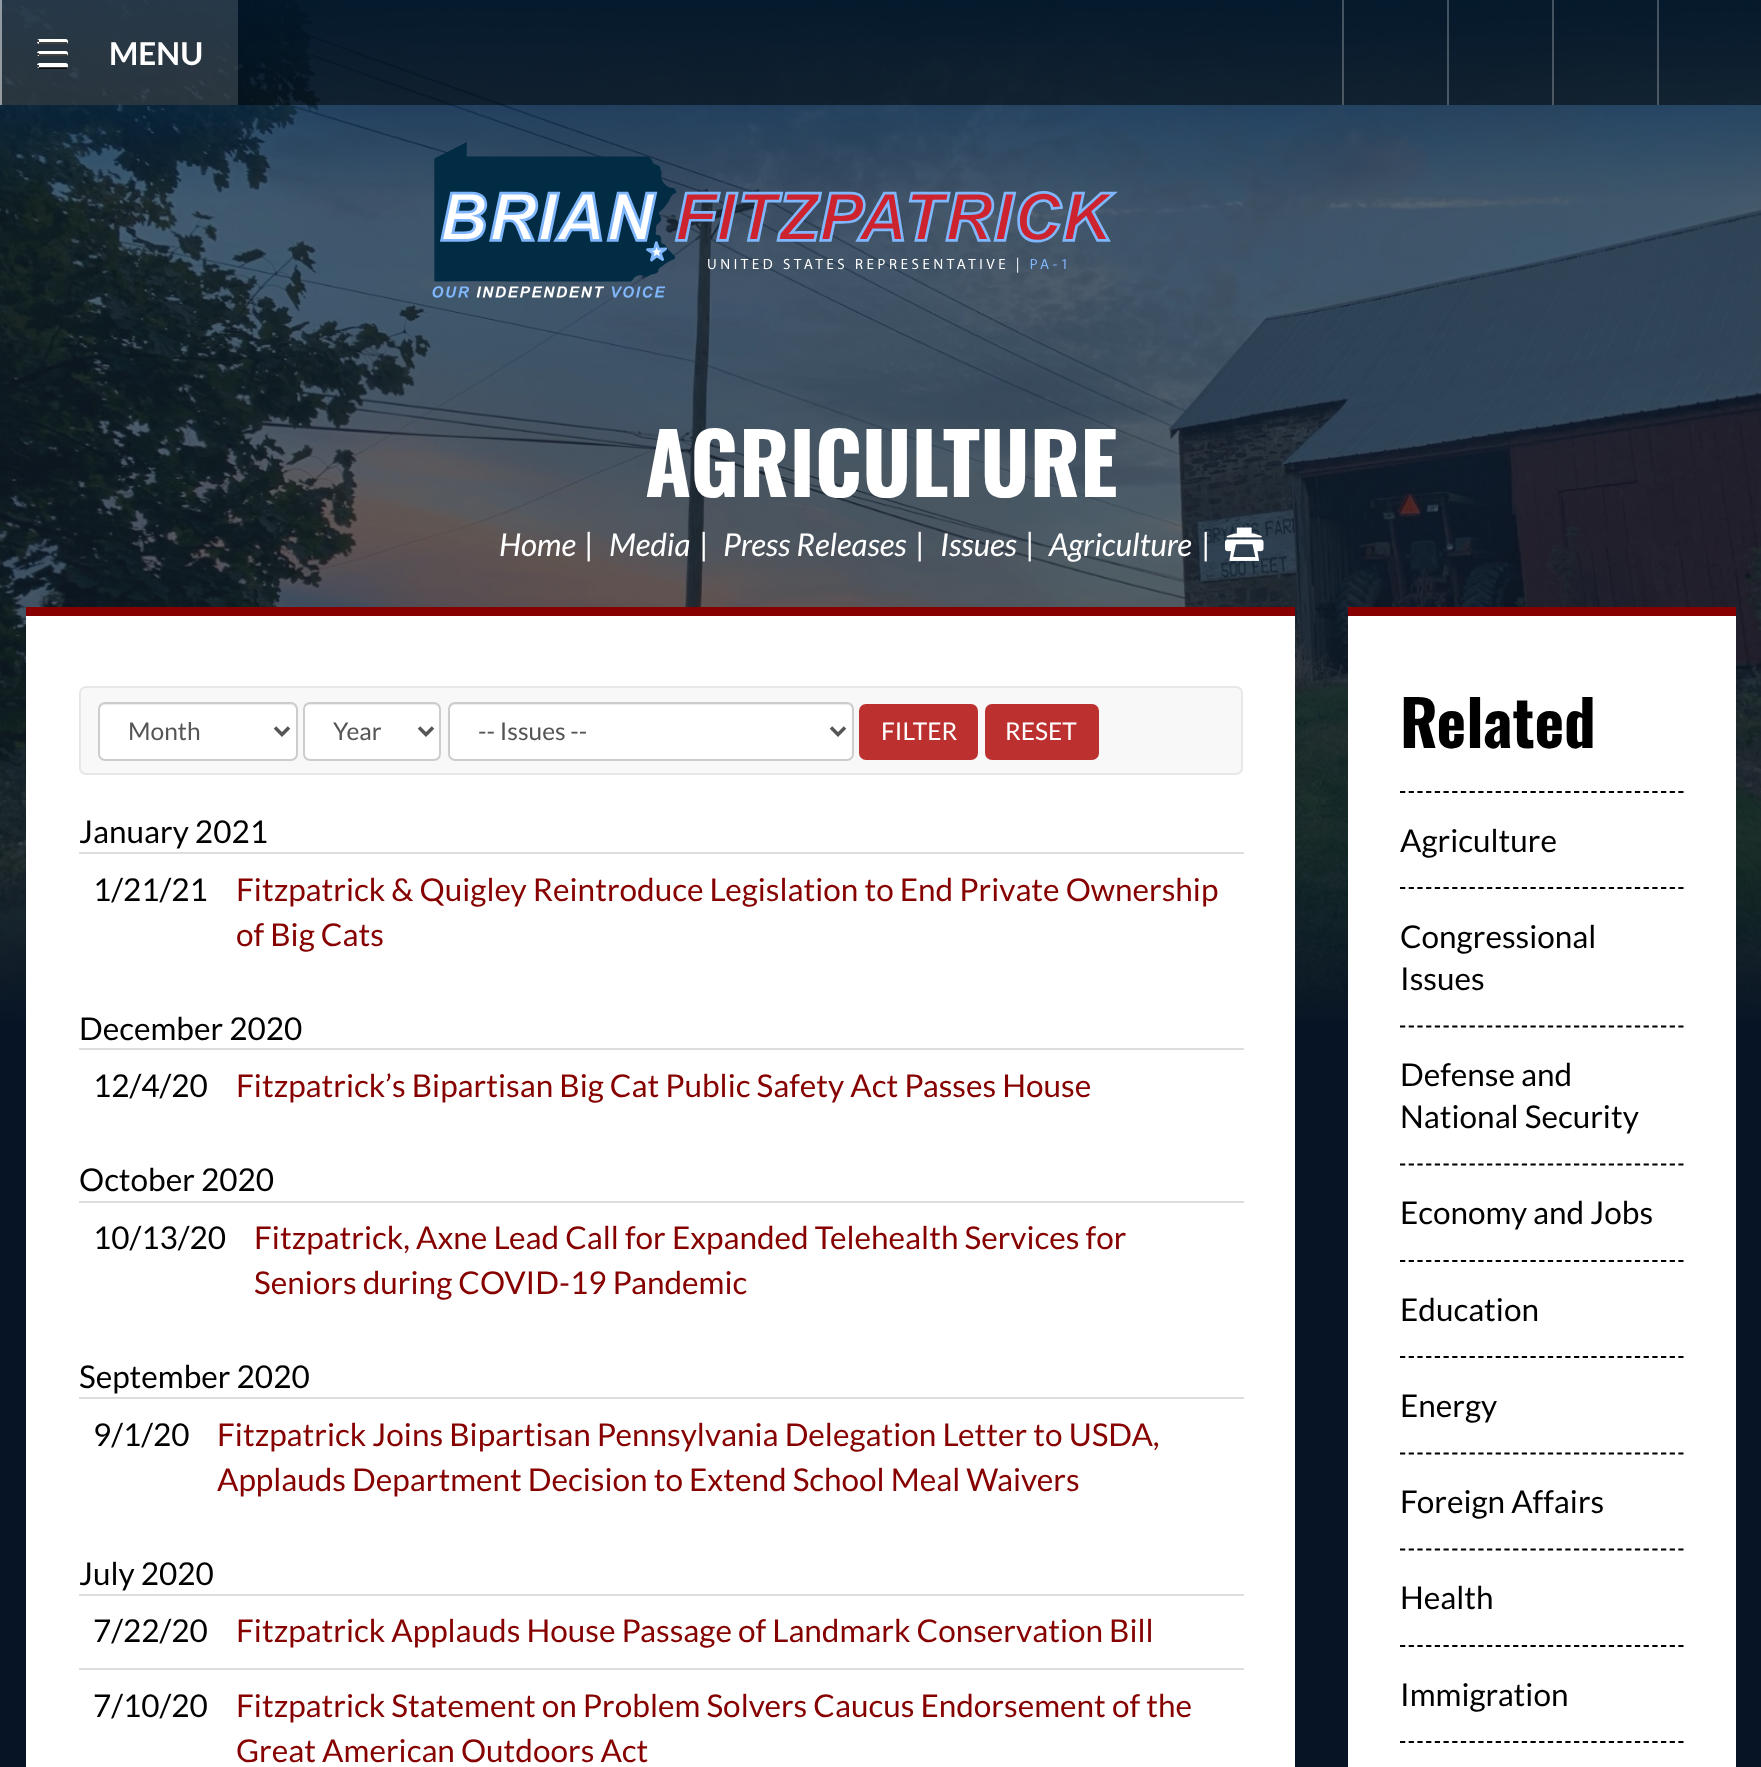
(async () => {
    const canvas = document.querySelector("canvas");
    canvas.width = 1761;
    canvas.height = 1767;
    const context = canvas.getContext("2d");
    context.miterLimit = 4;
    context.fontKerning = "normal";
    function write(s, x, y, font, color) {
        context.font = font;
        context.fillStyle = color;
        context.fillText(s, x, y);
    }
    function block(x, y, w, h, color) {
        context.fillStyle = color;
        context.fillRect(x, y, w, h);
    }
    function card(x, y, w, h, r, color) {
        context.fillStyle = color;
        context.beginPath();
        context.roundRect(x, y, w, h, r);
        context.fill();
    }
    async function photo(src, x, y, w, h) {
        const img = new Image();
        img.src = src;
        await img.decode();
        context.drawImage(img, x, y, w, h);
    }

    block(0, 0, 1761, 1767, "rgb(7, 20, 38)");
    await photo("media/1.png", 0, 0, 1761, 1021);
    block(0, 0, 1761, 105, "rgba(0, 0, 0, 0.5)");
    block(0, 0, 238, 105, "rgba(255, 255, 255, 0.15)");
    block(0, 0, 2, 105, "rgba(255, 255, 255, 0.5)");
    card(37, 39, 31, 5, 2.5, "rgb(255, 255, 255)");
    block(39, 42, 28, 2, "rgba(0, 0, 0, 0.75)");
    block(37, 40, 2, 2, "rgba(0, 0, 0, 0.75)");
    card(37, 51, 31, 5, 2.5, "rgb(255, 255, 255)");
    block(39, 54, 28, 2, "rgba(0, 0, 0, 0.75)");
    block(37, 53, 2, 2, "rgba(0, 0, 0, 0.75)");
    card(37, 63, 31, 5, 2.5, "rgb(255, 255, 255)");
    block(39, 67, 28, 2, "rgba(0, 0, 0, 0.75)");
    block(37, 65, 2, 2, "rgba(0, 0, 0, 0.75)");
    write("MENU", 109, 65, "bold 31.5px Lato", "rgb(255, 255, 255)");
    block(1342, 0, 2, 105, "rgba(255, 255, 255, 0.25)");
    block(1447, 0, 2, 105, "rgba(255, 255, 255, 0.25)");
    block(1552, 0, 2, 105, "rgba(255, 255, 255, 0.25)");
    block(1657, 0, 2, 105, "rgba(255, 255, 255, 0.25)");
    await photo("media/2.png", 432, 142, 686, 156);
    write("AGRICULTURE", 645, 497, "bold 84px Oswald", "rgb(255, 255, 255)");
    write("Home", 499, 556, "italic 31.5px Lato", "rgb(255, 255, 255)");
    write("|", 584, 556, "31.5px Lato", "rgb(255, 255, 255)");
    write("Media", 609, 556, "italic 31.5px Lato", "rgb(255, 255, 255)");
    write("|", 699, 556, "31.5px Lato", "rgb(255, 255, 255)");
    write("Press Releases", 723, 556, "italic 31.5px Lato", "rgb(255, 255, 255)");
    write("|", 915, 556, "31.5px Lato", "rgb(255, 255, 255)");
    write("Issues", 940, 556, "italic 31.5px Lato", "rgb(255, 255, 255)");
    write("|", 1025, 556, "31.5px Lato", "rgb(255, 255, 255)");
    write("Agriculture", 1049, 556, "italic 31.5px Lato", "rgb(255, 255, 255)");
    write("|", 1201, 556, "31.5px Lato", "rgb(255, 255, 255)");
    await photo("media/3.png", 1225, 527, 39, 34);
    block(26, 616, 1269, 1151, "rgb(255, 255, 255)");
    block(26, 607, 1269, 9, "rgb(134, 0, 0)");
    context.fillStyle = "rgb(248, 248, 248)";
    context.beginPath();
    context.roundRect(80, 687, 1162, 87, 6);
    context.fill();
    context.strokeStyle = "rgb(231, 231, 231)";
    context.lineWidth = 2;
    context.stroke();
    card(98, 702, 200, 59, 7, "rgb(255, 255, 255)");
    context.fillStyle = "rgb(236, 236, 236)";
    context.beginPath();
    context.moveTo(105, 705);
    context.lineTo(290, 705);
    context.bezierCurveTo(293, 705, 296, 708, 296, 710);
    context.lineTo(296, 709);
    context.bezierCurveTo(296, 706, 294, 704, 291, 704);
    context.lineTo(105, 704);
    context.bezierCurveTo(102, 704, 100, 706, 100, 709);
    context.lineTo(100, 710);
    context.bezierCurveTo(100, 708, 102, 705, 105, 705);
    context.closePath();
    context.fill();
    context.beginPath();
    context.roundRect(99, 703, 198, 57, 6);
    context.strokeStyle = "rgb(204, 204, 204)";
    context.stroke();
    context.beginPath();
    context.moveTo(275, 727.5);
    context.lineTo(282, 734.5);
    context.lineTo(289, 727.5);
    context.strokeStyle = "rgb(85, 85, 85)";
    context.lineWidth = 3.5;
    context.stroke();
    write("Month", 128, 740, "24.5px Lato", "rgb(85, 85, 85)");
    card(303, 702, 138, 59, 7, "rgb(255, 255, 255)");
    context.fillStyle = "rgb(236, 236, 236)";
    context.beginPath();
    context.moveTo(310, 705);
    context.lineTo(434, 705);
    context.bezierCurveTo(437, 705, 439, 708, 439, 710);
    context.lineTo(439, 709);
    context.bezierCurveTo(439, 706, 437, 704, 434, 704);
    context.lineTo(310, 704);
    context.bezierCurveTo(308, 704, 306, 705, 305, 707);
    context.bezierCurveTo(306, 706, 308, 705, 310, 705);
    context.closePath();
    context.fill();
    context.beginPath();
    context.roundRect(304, 703, 136, 57, 6);
    context.strokeStyle = "rgb(204, 204, 204)";
    context.lineWidth = 2;
    context.stroke();
    context.beginPath();
    context.moveTo(419, 727.5);
    context.lineTo(426, 734.5);
    context.lineTo(433, 727.5);
    context.strokeStyle = "rgb(85, 85, 85)";
    context.lineWidth = 3.5;
    context.stroke();
    write("Year", 333, 740, "24.5px Lato", "rgb(85, 85, 85)");
    card(448, 702, 406, 59, 7, "rgb(255, 255, 255)");
    context.fillStyle = "rgb(236, 236, 236)";
    context.beginPath();
    context.moveTo(455, 705);
    context.lineTo(847, 705);
    context.bezierCurveTo(850, 705, 852, 708, 852, 710);
    context.lineTo(852, 709);
    context.bezierCurveTo(852, 706, 850, 704, 847, 704);
    context.lineTo(455, 704);
    context.bezierCurveTo(452, 704, 450, 706, 450, 709);
    context.lineTo(450, 710);
    context.bezierCurveTo(450, 708, 452, 705, 455, 705);
    context.closePath();
    context.fill();
    context.beginPath();
    context.roundRect(449, 703, 404, 57, 6);
    context.strokeStyle = "rgb(204, 204, 204)";
    context.lineWidth = 2;
    context.stroke();
    context.beginPath();
    context.moveTo(831, 727.5);
    context.lineTo(838, 734.5);
    context.lineTo(845, 727.5);
    context.strokeStyle = "rgb(85, 85, 85)";
    context.lineWidth = 3.5;
    context.stroke();
    write("-- Issues --", 478, 740, "24.5px Lato", "rgb(85, 85, 85)");
    card(859, 704, 119, 56, 7, "rgb(189, 48, 48)");
    write("FILTER", 881, 740, "24.5px Lato", "rgb(255, 255, 255)");
    card(985, 704, 114, 56, 7, "rgb(189, 48, 48)");
    write("RESET", 1005, 740, "24.5px Lato", "rgb(255, 255, 255)");
    write("January 2021", 79, 843, "31.5px Lato", "rgb(0, 0, 0)");
    write("1/21/21", 93, 901, "31.5px Lato", "rgb(0, 0, 0)");
    block(79, 852, 1165, 2, "rgb(221, 221, 221)");
    write("Fitzpatrick & Quigley Reintroduce Legislation to End Private Ownership", 236, 901, "31.5px Lato", "rgb(134, 0, 0)");
    write("of Big Cats", 236, 946, "31.5px Lato", "rgb(134, 0, 0)");
    write("December 2020", 79, 1040, "31.5px Lato", "rgb(0, 0, 0)");
    write("12/4/20", 93, 1097, "31.5px Lato", "rgb(0, 0, 0)");
    block(79, 1048, 1165, 2, "rgb(221, 221, 221)");
    write("Fitzpatrick’s Bipartisan Big Cat Public Safety Act Passes House", 236, 1097, "31.5px Lato", "rgb(134, 0, 0)");
    write("October 2020", 79, 1191, "31.5px Lato", "rgb(0, 0, 0)");
    write("10/13/20", 93, 1249, "31.5px Lato", "rgb(0, 0, 0)");
    block(79, 1201, 1165, 2, "rgb(221, 221, 221)");
    write("Fitzpatrick, Axne Lead Call for Expanded Telehealth Services for", 254, 1249, "31.5px Lato", "rgb(134, 0, 0)");
    write("Seniors during COVID-19 Pandemic", 254, 1294, "31.5px Lato", "rgb(134, 0, 0)");
    write("September 2020", 79, 1388, "31.5px Lato", "rgb(0, 0, 0)");
    write("9/1/20", 93, 1446, "31.5px Lato", "rgb(0, 0, 0)");
    block(79, 1397, 1165, 2, "rgb(221, 221, 221)");
    write("Fitzpatrick Joins Bipartisan Pennsylvania Delegation Letter to USDA,", 217, 1446, "31.5px Lato", "rgb(134, 0, 0)");
    write("Applauds Department Decision to Extend School Meal Waivers", 217, 1491, "31.5px Lato", "rgb(134, 0, 0)");
    write("July 2020", 79, 1585, "31.5px Lato", "rgb(0, 0, 0)");
    write("7/22/20", 93, 1642, "31.5px Lato", "rgb(0, 0, 0)");
    block(79, 1594, 1165, 2, "rgb(221, 221, 221)");
    write("Fitzpatrick Applauds House Passage of Landmark Conservation Bill", 236, 1642, "31.5px Lato", "rgb(134, 0, 0)");
    write("7/10/20", 93, 1717, "31.5px Lato", "rgb(0, 0, 0)");
    block(79, 1668, 1165, 2, "rgb(221, 221, 221)");
    write("Fitzpatrick Statement on Problem Solvers Caucus Endorsement of the", 236, 1717, "31.5px Lato", "rgb(134, 0, 0)");
    write("Great American Outdoors Act", 236, 1762, "31.5px Lato", "rgb(134, 0, 0)");
    block(1348, 616, 388, 1151, "rgb(255, 255, 255)");
    block(1348, 607, 388, 9, "rgb(134, 0, 0)");
    context.beginPath();
    context.moveTo(1400, 792);
    context.lineTo(1683.5, 792);
    context.strokeStyle = "rgb(0, 0, 0)";
    context.lineWidth = 1.8;
    context.setLineDash([5.25, 3.45]);
    context.stroke();
    write("Related", 1400, 748, "bold 63px Oswald", "rgb(0, 0, 0)");
    context.beginPath();
    context.moveTo(1400, 888);
    context.lineTo(1683.5, 888);
    context.stroke();
    write("Agriculture", 1400, 852, "31.5px Lato", "rgb(0, 0, 0)");
    context.beginPath();
    context.moveTo(1400, 1026.5);
    context.lineTo(1683.5, 1026.5);
    context.stroke();
    write("Congressional", 1400, 948, "31.5px Lato", "rgb(0, 0, 0)");
    write("Issues", 1400, 990, "31.5px Lato", "rgb(0, 0, 0)");
    context.beginPath();
    context.moveTo(1400, 1164.5);
    context.lineTo(1683.5, 1164.5);
    context.stroke();
    write("Defense and", 1400, 1086, "31.5px Lato", "rgb(0, 0, 0)");
    write("National Security", 1400, 1128, "31.5px Lato", "rgb(0, 0, 0)");
    context.beginPath();
    context.moveTo(1400, 1261);
    context.lineTo(1683.5, 1261);
    context.stroke();
    write("Economy and Jobs", 1400, 1224, "31.5px Lato", "rgb(0, 0, 0)");
    context.beginPath();
    context.moveTo(1400, 1357);
    context.lineTo(1683.5, 1357);
    context.stroke();
    write("Education", 1400, 1321, "31.5px Lato", "rgb(0, 0, 0)");
    context.beginPath();
    context.moveTo(1400, 1453.5);
    context.lineTo(1683.5, 1453.5);
    context.stroke();
    write("Energy", 1400, 1417, "31.5px Lato", "rgb(0, 0, 0)");
    context.beginPath();
    context.moveTo(1400, 1549.5);
    context.lineTo(1683.5, 1549.5);
    context.stroke();
    write("Foreign Affairs", 1400, 1513, "31.5px Lato", "rgb(0, 0, 0)");
    context.beginPath();
    context.moveTo(1400, 1646);
    context.lineTo(1683.5, 1646);
    context.stroke();
    write("Health", 1400, 1609, "31.5px Lato", "rgb(0, 0, 0)");
    context.beginPath();
    context.moveTo(1400, 1742);
    context.lineTo(1683.5, 1742);
    context.stroke();
    write("Immigration", 1400, 1706, "31.5px Lato", "rgb(0, 0, 0)");
})();
